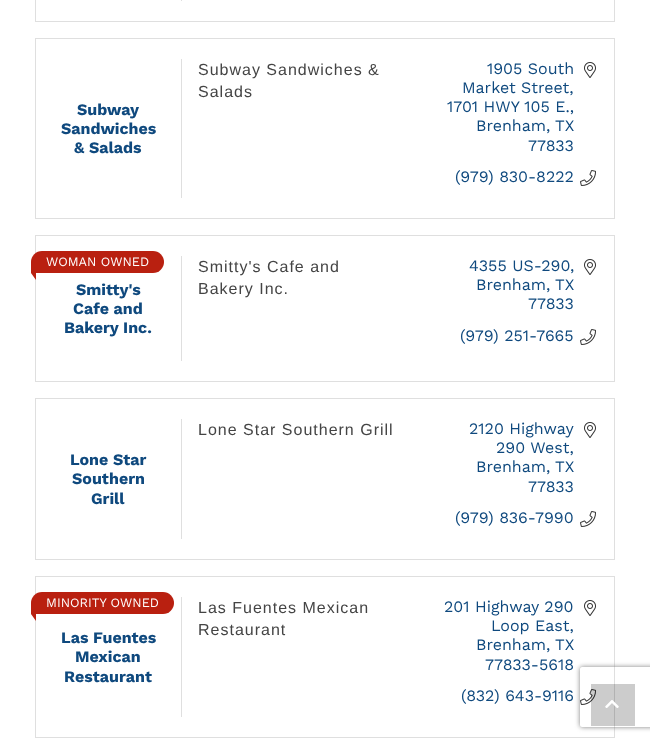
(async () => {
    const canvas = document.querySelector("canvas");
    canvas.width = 650;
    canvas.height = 741;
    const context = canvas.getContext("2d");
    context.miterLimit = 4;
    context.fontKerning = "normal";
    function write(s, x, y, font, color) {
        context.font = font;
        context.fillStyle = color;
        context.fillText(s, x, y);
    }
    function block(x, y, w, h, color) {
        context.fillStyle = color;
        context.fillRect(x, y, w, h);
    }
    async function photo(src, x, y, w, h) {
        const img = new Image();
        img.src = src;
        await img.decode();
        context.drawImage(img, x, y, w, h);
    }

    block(0, 0, 650, 741, "rgb(255, 255, 255)");
    context.strokeStyle = "rgb(223, 223, 223)";
    context.strokeRect(35.5, -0.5, 579, 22);
    block(181, 0, 1, 1, "rgb(223, 223, 223)");
    context.strokeRect(35.5, 38.5, 579, 180);
    block(181, 59, 1, 139, "rgb(223, 223, 223)");
    context.letterSpacing = "1px";
    write("Subway Sandwiches &", 198, 75, "16px Liberation Sans", "rgb(68, 68, 68)");
    write("Salads", 198, 97, "16px Liberation Sans", "rgb(68, 68, 68)");
    context.letterSpacing = "0px";
    write("1905 South", 487, 74, "16px Work Sans", "rgb(15, 73, 126)");
    await photo("media/1.png", 584, 62, 12, 16);
    write("Market Street,", 462, 93, "16px Work Sans", "rgb(15, 73, 126)");
    write("1701 HWY 105 E.,", 447, 112, "16px Work Sans", "rgb(15, 73, 126)");
    write("Brenham,", 476, 131, "16px Work Sans", "rgb(15, 73, 126)");
    write("TX", 555, 131, "16px Work Sans", "rgb(15, 73, 126)");
    write("77833", 528, 151, "16px Work Sans", "rgb(15, 73, 126)");
    write("(979) 830-8222", 455, 182, "16px Work Sans", "rgb(15, 73, 126)");
    await photo("media/2.png", 580, 170, 16, 16);
    write("Subway", 77, 115, "bold 16px Work Sans", "rgb(15, 73, 126)");
    write("Sandwiches", 61, 134, "bold 16px Work Sans", "rgb(15, 73, 126)");
    write("& Salads", 74, 153, "bold 16px Work Sans", "rgb(15, 73, 126)");
    context.strokeRect(35.5, 235.5, 579, 146);
    context.fillStyle = "rgb(185, 32, 16)";
    context.beginPath();
    context.roundRect(31, 251, 133, 22, [11, 11, 11, 0.5]);
    context.fill();
    write("WOMAN OWNED", 46, 266, "12.75px Work Sans", "rgb(255, 255, 255)");
    context.fillStyle = "rgb(185, 32, 16)";
    context.beginPath();
    context.moveTo(36, 266);
    context.lineTo(36, 280);
    context.lineTo(31, 273);
    context.closePath();
    context.fill();
    write("Smitty's", 76, 295, "bold 16px Work Sans", "rgb(15, 73, 126)");
    write("Cafe and", 73, 314, "bold 16px Work Sans", "rgb(15, 73, 126)");
    write("Bakery Inc.", 64, 333, "bold 16px Work Sans", "rgb(15, 73, 126)");
    block(181, 256, 1, 105, "rgb(223, 223, 223)");
    context.letterSpacing = "1px";
    write("Smitty's Cafe and", 198, 272, "16px Liberation Sans", "rgb(68, 68, 68)");
    write("Bakery Inc.", 198, 294, "16px Liberation Sans", "rgb(68, 68, 68)");
    context.letterSpacing = "0px";
    write("4355 US-290", 469, 271, "16px Work Sans", "rgb(15, 73, 126)");
    write(",", 570, 271, "16px Work Sans", "rgb(15, 73, 126)");
    await photo("media/1.png", 584, 259, 12, 16);
    write("Brenham,", 476, 290, "16px Work Sans", "rgb(15, 73, 126)");
    write("TX", 555, 290, "16px Work Sans", "rgb(15, 73, 126)");
    write("77833", 528, 309, "16px Work Sans", "rgb(15, 73, 126)");
    write("(979) 251-7665", 460, 341, "16px Work Sans", "rgb(15, 73, 126)");
    await photo("media/2.png", 580, 329, 16, 16);
    context.strokeRect(35.5, 398.5, 579, 161);
    block(181, 419, 1, 120, "rgb(223, 223, 223)");
    context.letterSpacing = "1px";
    write("Lone Star Southern Grill", 198, 435, "16px Liberation Sans", "rgb(68, 68, 68)");
    context.letterSpacing = "0px";
    write("2120 Highway", 469, 434, "16px Work Sans", "rgb(15, 73, 126)");
    await photo("media/1.png", 584, 422, 12, 16);
    write("290 West,", 496, 453, "16px Work Sans", "rgb(15, 73, 126)");
    write("Brenham,", 476, 472, "16px Work Sans", "rgb(15, 73, 126)");
    write("TX", 555, 472, "16px Work Sans", "rgb(15, 73, 126)");
    write("77833", 528, 492, "16px Work Sans", "rgb(15, 73, 126)");
    write("(979) 836-7990", 455, 523, "16px Work Sans", "rgb(15, 73, 126)");
    await photo("media/2.png", 580, 511, 16, 16);
    write("Lone Star", 70, 465, "bold 16px Work Sans", "rgb(15, 73, 126)");
    write("Southern", 72, 484, "bold 16px Work Sans", "rgb(15, 73, 126)");
    write("Grill", 91, 504, "bold 16px Work Sans", "rgb(15, 73, 126)");
    context.strokeRect(35.5, 576.5, 579, 161);
    context.fillStyle = "rgb(185, 32, 16)";
    context.beginPath();
    context.roundRect(31, 592, 143, 22, [11, 11, 11, 0.5]);
    context.fill();
    write("MINORITY OWNED", 46, 607, "12.75px Work Sans", "rgb(255, 255, 255)");
    context.fillStyle = "rgb(185, 32, 16)";
    context.beginPath();
    context.moveTo(36, 607);
    context.lineTo(36, 621);
    context.lineTo(31, 614);
    context.closePath();
    context.fill();
    write("Las Fuentes", 61, 643, "bold 16px Work Sans", "rgb(15, 73, 126)");
    write("Mexican", 75, 662, "bold 16px Work Sans", "rgb(15, 73, 126)");
    write("Restaurant", 64, 682, "bold 16px Work Sans", "rgb(15, 73, 126)");
    block(181, 597, 1, 120, "rgb(223, 223, 223)");
    context.letterSpacing = "1px";
    write("Las Fuentes Mexican", 198, 613, "16px Liberation Sans", "rgb(68, 68, 68)");
    write("Restaurant", 198, 635, "16px Liberation Sans", "rgb(68, 68, 68)");
    context.letterSpacing = "0px";
    write("201 Highway 290", 444, 612, "16px Work Sans", "rgb(15, 73, 126)");
    await photo("media/1.png", 584, 600, 12, 16);
    write("Loop East,", 491, 631, "16px Work Sans", "rgb(15, 73, 126)");
    write("Brenham,", 476, 650, "16px Work Sans", "rgb(15, 73, 126)");
    write("TX", 555, 650, "16px Work Sans", "rgb(15, 73, 126)");
    write("77833-5618", 485, 670, "16px Work Sans", "rgb(15, 73, 126)");
    write("(832) 643-9116", 461, 701, "16px Work Sans", "rgb(15, 73, 126)");
    await photo("media/2.png", 580, 689, 16, 16);
    context.save();
    context.beginPath();
    context.moveTo(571, 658);
    context.lineTo(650, 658);
    context.lineTo(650, 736);
    context.lineTo(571, 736);
    context.closePath();
    context.moveTo(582, 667);
    context.lineTo(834, 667);
    context.bezierCurveTo(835, 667, 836, 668, 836, 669);
    context.lineTo(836, 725);
    context.bezierCurveTo(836, 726, 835, 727, 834, 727);
    context.lineTo(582, 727);
    context.bezierCurveTo(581, 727, 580, 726, 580, 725);
    context.lineTo(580, 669);
    context.bezierCurveTo(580, 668, 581, 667, 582, 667);
    context.closePath();
    context.clip("evenodd");
    context.fillStyle = "rgb(128, 128, 128)";
    context.filter = "blur(2.5px)";
    context.beginPath();
    context.roundRect(580, 667, 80, 60, 2);
    context.fill();
    context.filter = "none";
    context.restore();
    block(591, 684, 44, 42, "rgba(0, 0, 0, 0.2)");
    await photo("media/3.png", 605, 700, 14, 8);
})();
